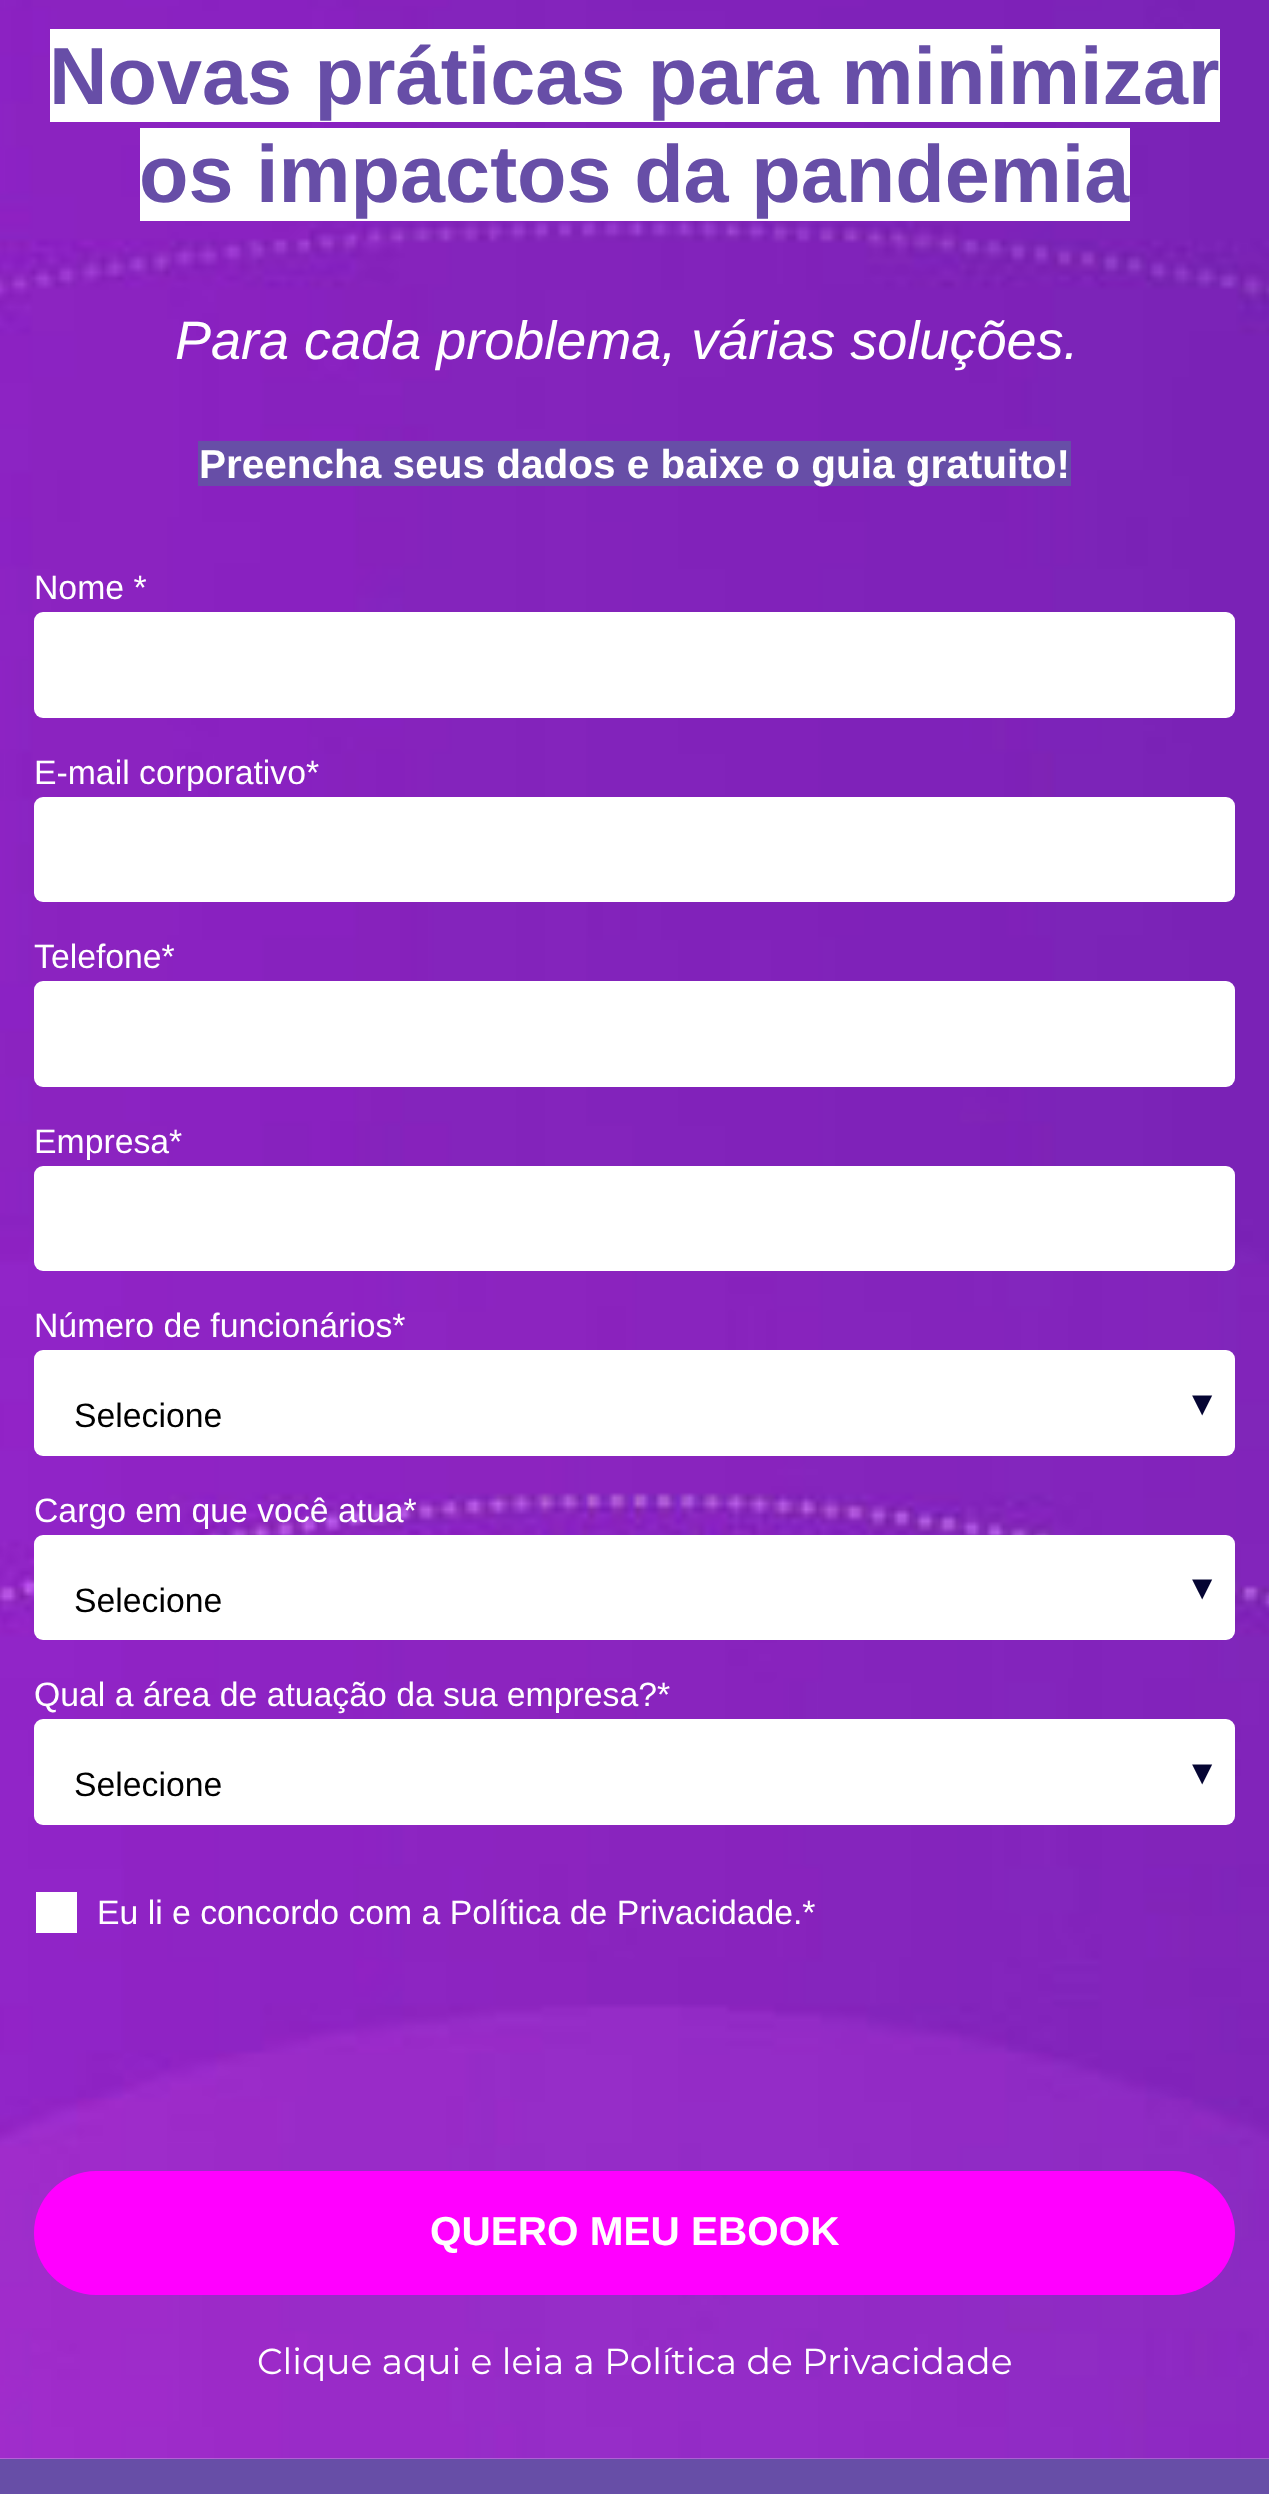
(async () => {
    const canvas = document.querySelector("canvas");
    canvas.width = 1269;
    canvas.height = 2494;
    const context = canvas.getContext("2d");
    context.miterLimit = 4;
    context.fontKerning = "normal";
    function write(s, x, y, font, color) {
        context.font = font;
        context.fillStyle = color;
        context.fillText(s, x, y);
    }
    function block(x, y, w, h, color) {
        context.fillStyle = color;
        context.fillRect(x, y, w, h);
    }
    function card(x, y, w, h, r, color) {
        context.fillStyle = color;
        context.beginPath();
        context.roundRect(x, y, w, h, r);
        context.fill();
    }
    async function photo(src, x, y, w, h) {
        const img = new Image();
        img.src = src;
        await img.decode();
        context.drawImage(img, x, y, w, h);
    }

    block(0, 0, 1269, 2494, "rgb(255, 255, 255)");
    await photo("media/1.png", 0, 0, 1269, 2459);
    block(50, 29, 1170, 93, "rgb(255, 255, 255)");
    write("Novas práticas para minimizar", 49, 104, "bold 81px Liberation Sans", "rgb(103, 78, 167)");
    block(140, 128, 990, 93, "rgb(255, 255, 255)");
    write("os impactos da pandemia", 139, 202, "bold 81px Liberation Sans", "rgb(103, 78, 167)");
    write("Para cada problema, várias soluções.", 175, 359, "italic 54px Liberation Sans", "rgb(255, 255, 255)");
    block(198, 441, 873, 45, "rgb(103, 78, 167)");
    write("Preencha seus dados e baixe o guia gratuito!", 199, 478, "bold 40.5px Liberation Sans", "rgb(255, 255, 255)");
    write("Nome *", 34, 599, "33.75px Liberation Sans", "rgb(255, 255, 255)");
    card(34, 612, 1201, 106, 9, "rgb(255, 255, 255)");
    write("E-mail corporativo*", 34, 784, "33.75px Liberation Sans", "rgb(255, 255, 255)");
    card(34, 797, 1201, 105, 9, "rgb(255, 255, 255)");
    write("Telefone*", 34, 968, "33.75px Liberation Sans", "rgb(255, 255, 255)");
    card(34, 981, 1201, 106, 9, "rgb(255, 255, 255)");
    write("Empresa*", 34, 1153, "33.75px Liberation Sans", "rgb(255, 255, 255)");
    card(34, 1166, 1201, 105, 9, "rgb(255, 255, 255)");
    write("Número de funcionários*", 34, 1337, "33.75px Liberation Sans", "rgb(255, 255, 255)");
    card(34, 1350, 1201, 106, 9, "rgb(255, 255, 255)");
    write("Selecione", 74, 1427, "33.75px Liberation Sans", "rgb(0, 0, 0)");
    write("▾", 1192, 1416, "40.5px DejaVu Sans", "rgb(5, 5, 51)");
    write("Cargo em que você atua*", 34, 1522, "33.75px Liberation Sans", "rgb(255, 255, 255)");
    card(34, 1535, 1201, 105, 9, "rgb(255, 255, 255)");
    write("Selecione", 74, 1612, "33.75px Liberation Sans", "rgb(0, 0, 0)");
    write("▾", 1192, 1600, "40.5px DejaVu Sans", "rgb(5, 5, 51)");
    write("Qual a área de atuação da sua empresa?*", 34, 1706, "33.75px Liberation Sans", "rgb(255, 255, 255)");
    card(34, 1719, 1201, 106, 9, "rgb(255, 255, 255)");
    write("Selecione", 74, 1796, "33.75px Liberation Sans", "rgb(0, 0, 0)");
    write("▾", 1192, 1785, "40.5px DejaVu Sans", "rgb(5, 5, 51)");
    block(36, 1892, 41, 41, "rgb(255, 255, 255)");
    write("Eu li e concordo com a Política de Privacidade.*", 97, 1924, "33.75px Liberation Sans", "rgb(255, 255, 255)");
    card(34, 2171, 1201, 124, 62, "rgb(255, 0, 255)");
    write("QUERO MEU EBOOK", 430, 2245, "bold 40.5px Liberation Sans", "rgb(255, 255, 255)");
    write("Clique aqui e leia a Política de Privacidade", 257, 2374, "36px Montserrat", "rgb(255, 255, 255)");
    block(0, 2459, 1269, 35, "rgb(103, 78, 167)");
})();
